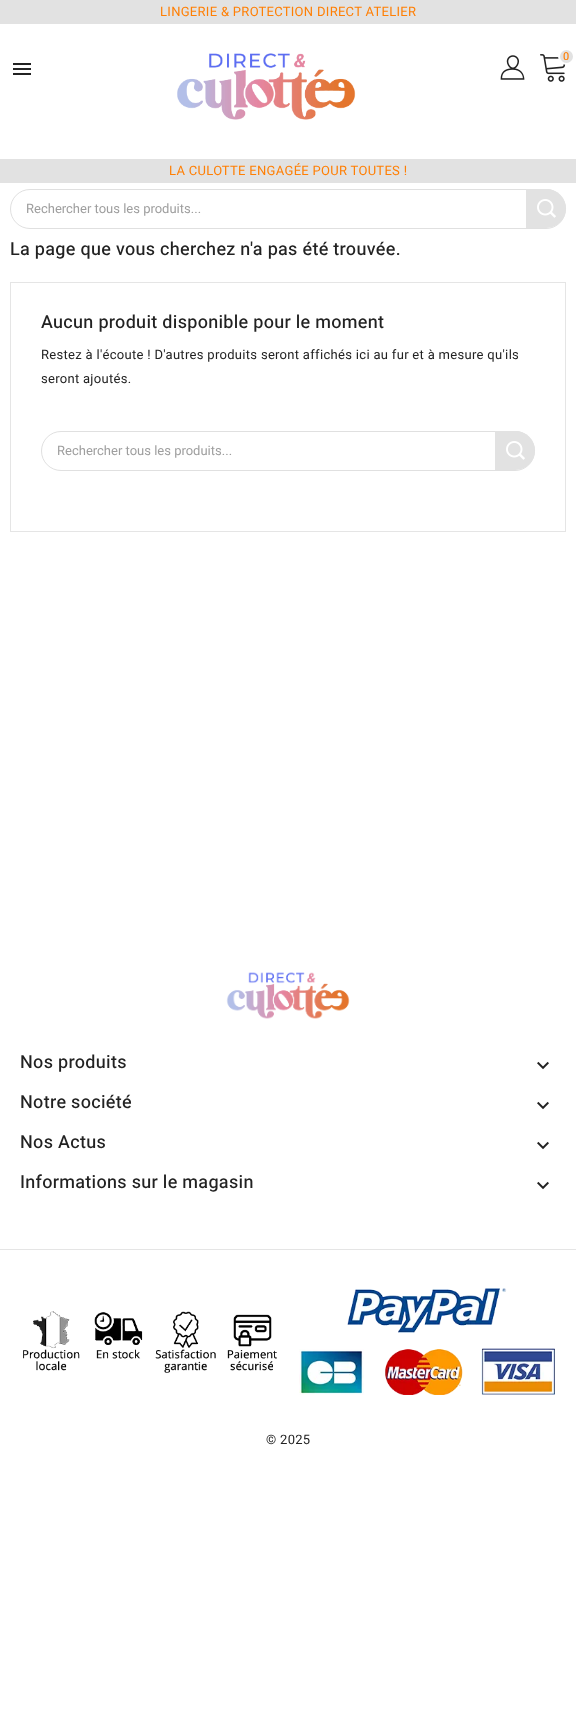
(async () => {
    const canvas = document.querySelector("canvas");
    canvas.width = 576;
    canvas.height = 1735;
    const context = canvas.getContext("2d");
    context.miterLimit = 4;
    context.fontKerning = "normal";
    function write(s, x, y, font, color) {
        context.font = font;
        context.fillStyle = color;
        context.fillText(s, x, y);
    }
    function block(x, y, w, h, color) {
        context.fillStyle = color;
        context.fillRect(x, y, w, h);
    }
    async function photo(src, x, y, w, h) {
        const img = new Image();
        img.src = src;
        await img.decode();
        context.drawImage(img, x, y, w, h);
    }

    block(0, 0, 576, 1735, "rgb(255, 255, 255)");
    block(0, 0, 576, 24, "rgb(226, 226, 226)");
    context.letterSpacing = "0.3px";
    write("LINGERIE & PROTECTION DIRECT ATELIER", 160, 16, "13px Heebo", "rgb(255, 127, 4)");
    await photo("media/1.png", 13, 63, 18, 12);
    await photo("media/2.png", 177, 53, 179, 67);
    await photo("media/3.png", 500, 55, 25, 25);
    await photo("media/4.png", 540, 54, 26, 28);
    context.fillStyle = "rgb(226, 226, 226)";
    context.beginPath();
    context.arc(566.5, 56.5, 7.5, 0, Math.PI * 2);
    context.fill();
    context.strokeStyle = "rgb(255, 255, 255)";
    context.lineWidth = 2;
    context.stroke();
    write("0", 563, 60, "500 11px Heebo", "rgb(255, 127, 4)");
    block(0, 159, 576, 24, "rgb(226, 226, 226)");
    write("LA CULOTTE ENGAGÉE POUR TOUTES !", 169, 175, "13px Heebo", "rgb(255, 127, 4)");
    context.beginPath();
    context.roundRect(10.5, 189.5, 555, 39, 19.5);
    context.strokeStyle = "rgb(224, 224, 224)";
    context.lineWidth = 1;
    context.stroke();
    context.letterSpacing = "0px";
    write("Rechercher tous les produits...", 26, 213, "13px Heebo", "rgb(158, 158, 158)");
    context.fillStyle = "rgb(226, 226, 226)";
    context.beginPath();
    context.roundRect(526, 189, 40, 39, [0, 19.5, 19.5, 0]);
    context.fill();
    await photo("media/5.png", 537, 199, 19, 19);
    context.letterSpacing = "0.3px";
    write("La page que vous cherchez n'a pas été trouvée.", 10, 255, "500 18px Heebo", "rgb(34, 34, 34)");
    context.strokeStyle = "rgb(229, 229, 229)";
    context.strokeRect(10.5, 282.5, 555, 249);
    write("Aucun produit disponible pour le moment", 41, 328, "500 18px Heebo", "rgb(34, 34, 34)");
    write("Restez à l'écoute ! D'autres produits seront affichés ici au fur et à mesure qu'ils", 41, 359, "13px Heebo", "rgb(34, 34, 34)");
    write("seront ajoutés.", 41, 383, "13px Heebo", "rgb(34, 34, 34)");
    context.beginPath();
    context.roundRect(41.5, 431.5, 493, 39, 19.5);
    context.strokeStyle = "rgb(224, 224, 224)";
    context.stroke();
    context.letterSpacing = "0px";
    write("Rechercher tous les produits...", 57, 455, "13px Heebo", "rgb(158, 158, 158)");
    context.fillStyle = "rgb(226, 226, 226)";
    context.beginPath();
    context.roundRect(495, 431, 40, 39, [0, 19.5, 19.5, 0]);
    context.fill();
    await photo("media/5.png", 506, 441, 19, 19);
    await photo("media/6.png", 226, 972, 124, 47);
    context.letterSpacing = "0.3px";
    write("Nos produits", 20, 1068, "500 18px Heebo", "rgb(34, 34, 34)");
    await photo("media/7.png", 537, 1061, 12, 9);
    write("Notre société", 20, 1108, "500 18px Heebo", "rgb(34, 34, 34)");
    await photo("media/7.png", 537, 1101, 12, 9);
    write("Nos Actus", 20, 1148, "500 18px Heebo", "rgb(34, 34, 34)");
    await photo("media/7.png", 537, 1141, 12, 9);
    write("Informations sur le magasin", 20, 1188, "500 18px Heebo", "rgb(34, 34, 34)");
    await photo("media/7.png", 537, 1181, 12, 9);
    block(0, 1249, 576, 1, "rgb(229, 229, 229)");
    await photo("media/8.png", 23, 1311, 254, 62);
    await photo("media/9.png", 299, 1288, 256, 107);
    write("© 2025", 266, 1444, "13px Heebo", "rgb(34, 34, 34)");
})();
